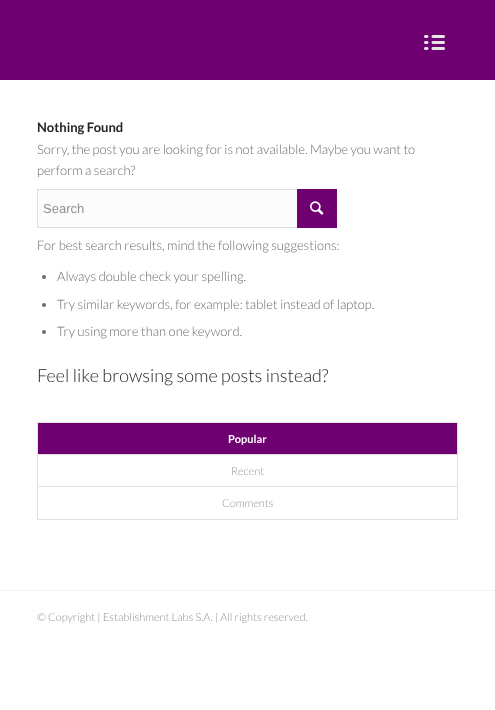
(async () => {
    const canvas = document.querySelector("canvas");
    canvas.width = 495;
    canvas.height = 710;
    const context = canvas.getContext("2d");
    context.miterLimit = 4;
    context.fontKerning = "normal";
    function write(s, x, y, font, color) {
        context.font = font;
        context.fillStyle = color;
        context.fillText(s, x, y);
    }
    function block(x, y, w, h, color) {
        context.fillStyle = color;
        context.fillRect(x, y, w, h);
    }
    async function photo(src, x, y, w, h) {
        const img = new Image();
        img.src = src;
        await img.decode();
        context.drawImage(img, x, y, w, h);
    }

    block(0, 0, 495, 710, "rgb(255, 255, 255)");
    block(0, 0, 495, 80, "rgb(110, 0, 114)");
    await photo("media/1.png", 424, 35, 21, 15);
    write("Nothing Found", 37, 132, "bold 13px Lato", "rgb(34, 34, 34)");
    write("Sorry, the post you are looking for is not available. Maybe you want to", 37, 154, "300 13px Lato", "rgb(107, 107, 107)");
    write("perform a search?", 37, 175, "300 13px Lato", "rgb(107, 107, 107)");
    block(38, 190, 259, 37, "rgb(252, 252, 252)");
    context.strokeStyle = "rgb(225, 225, 225)";
    context.strokeRect(37.5, 189.5, 299, 38);
    write("Search", 43, 213, "13px Liberation Sans", "rgb(145, 145, 145)");
    block(297, 189, 40, 39, "rgb(110, 0, 114)");
    await photo("media/2.png", 310, 201, 14, 14);
    write("For best search results, mind the following suggestions:", 37, 250, "300 13px Lato", "rgb(107, 107, 107)");
    context.beginPath();
    context.arc(44, 277, 2, 0, Math.PI * 2);
    context.fill();
    write("Always double check your spelling.", 57, 281, "300 13px Lato", "rgb(107, 107, 107)");
    context.beginPath();
    context.arc(44, 305, 2, 0, Math.PI * 2);
    context.fill();
    write("Try similar keywords, for example: tablet instead of laptop.", 57, 309, "300 13px Lato", "rgb(107, 107, 107)");
    context.beginPath();
    context.arc(44, 332, 2, 0, Math.PI * 2);
    context.fill();
    write("Try using more than one keyword.", 57, 336, "300 13px Lato", "rgb(107, 107, 107)");
    write("Feel like browsing some posts instead?", 37, 382, "300 18px Lato", "rgb(34, 34, 34)");
    block(457, 422, 1, 98, "rgb(225, 225, 225)");
    block(37, 519, 421, 1, "rgb(225, 225, 225)");
    block(37, 422, 1, 98, "rgb(225, 225, 225)");
    block(38, 423, 419, 31, "rgb(110, 0, 114)");
    block(38, 422, 419, 1, "rgb(225, 225, 225)");
    write("Popular", 228, 443, "bold 11px Lato", "rgb(255, 255, 255)");
    block(38, 454, 419, 1, "rgb(225, 225, 225)");
    write("Recent", 231, 475, "300 11px Lato", "rgb(145, 145, 145)");
    block(38, 486, 419, 1, "rgb(225, 225, 225)");
    write("Comments", 222, 507, "300 11px Lato", "rgb(145, 145, 145)");
    block(0, 590, 495, 1, "rgb(242, 242, 242)");
    write("© Copyright | Establishment Labs S.A. | All rights reserved.", 37, 621, "300 11px Lato", "rgb(145, 145, 145)");
})();
